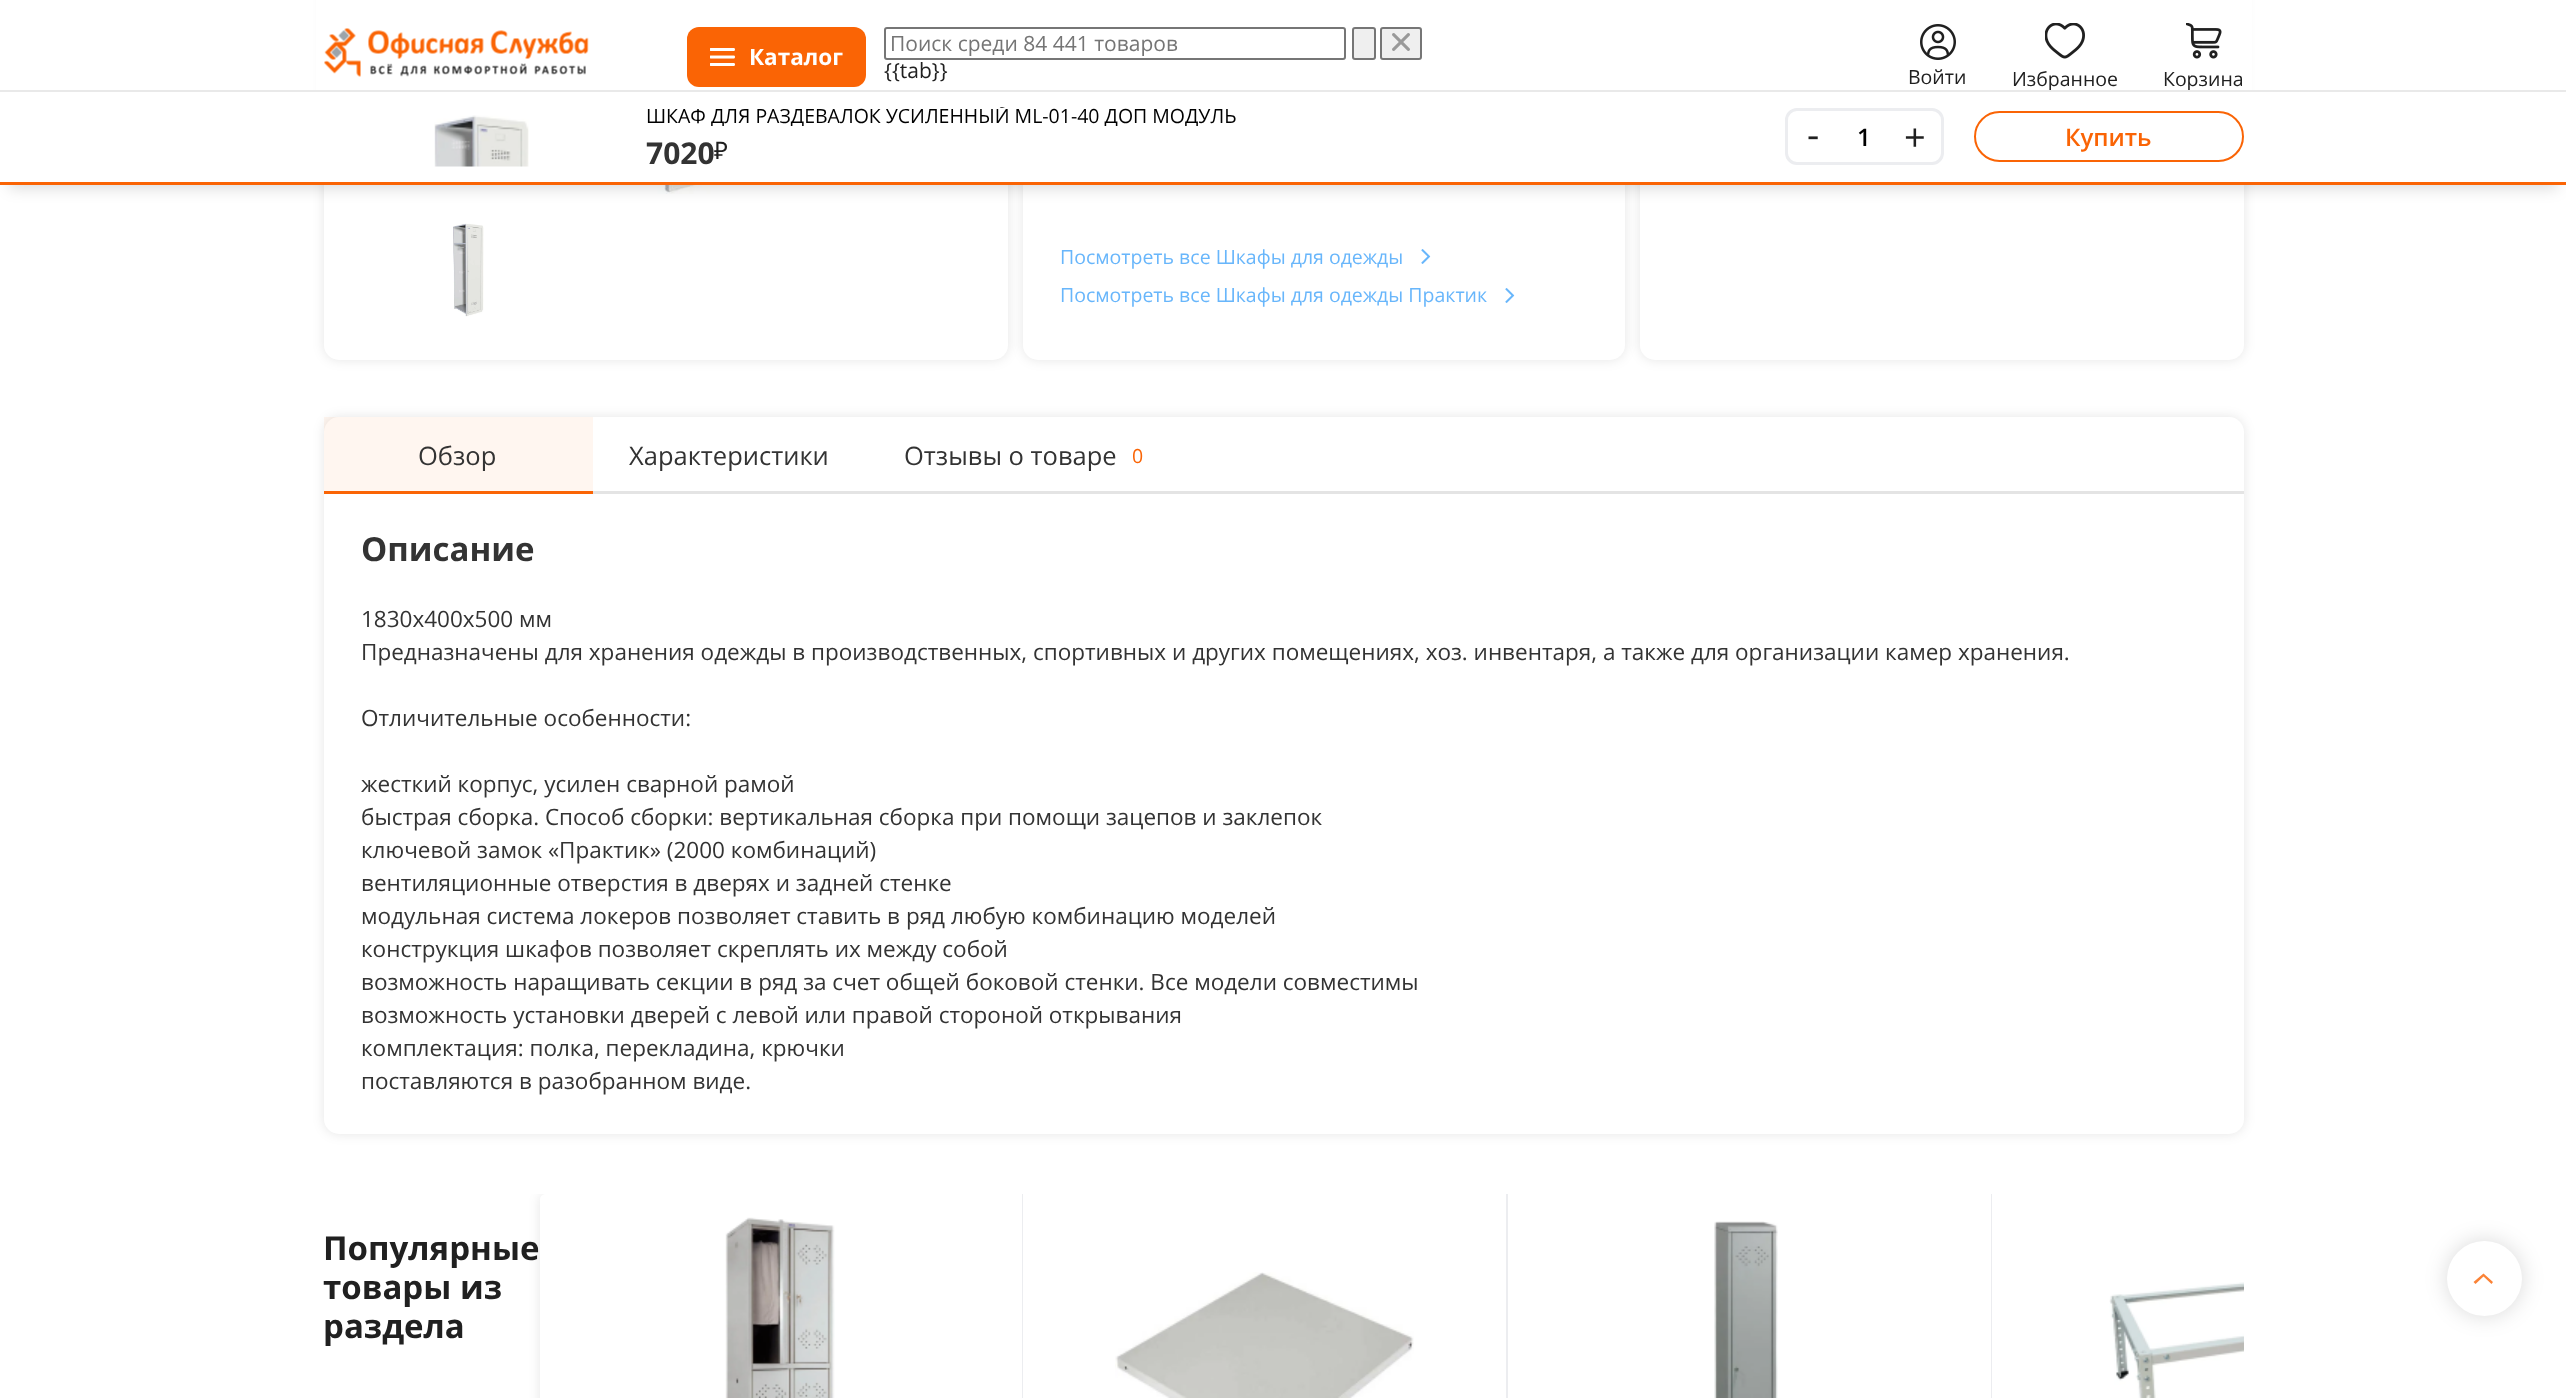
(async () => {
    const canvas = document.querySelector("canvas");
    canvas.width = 2566;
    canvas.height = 1398;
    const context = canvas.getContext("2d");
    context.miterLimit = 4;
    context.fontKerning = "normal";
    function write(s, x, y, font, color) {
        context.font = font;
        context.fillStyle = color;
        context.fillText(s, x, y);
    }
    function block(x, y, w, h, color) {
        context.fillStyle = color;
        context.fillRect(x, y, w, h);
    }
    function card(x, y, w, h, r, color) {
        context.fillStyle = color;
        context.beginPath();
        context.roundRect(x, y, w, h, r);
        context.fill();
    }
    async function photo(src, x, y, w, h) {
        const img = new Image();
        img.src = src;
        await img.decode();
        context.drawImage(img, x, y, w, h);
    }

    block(0, 0, 2566, 1398, "rgb(255, 255, 255)");
    context.fillStyle = "rgba(0, 0, 0, 0.1)";
    context.filter = "blur(6px)";
    context.beginPath();
    context.roundRect(324, -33, 684, 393, 15);
    context.fill();
    context.filter = "none";
    card(324, -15, 684, 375, 15, "rgb(255, 255, 255)");
    context.fillStyle = "rgba(0, 0, 0, 0.1)";
    context.filter = "blur(6px)";
    context.beginPath();
    context.roundRect(1640, -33, 604, 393, 15);
    context.fill();
    context.filter = "none";
    card(1640, -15, 604, 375, 15, "rgb(255, 255, 255)");
    context.fillStyle = "rgba(0, 0, 0, 0.1)";
    context.filter = "blur(6px)";
    context.beginPath();
    context.roundRect(1023, -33, 602, 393, 15);
    context.fill();
    context.filter = "none";
    card(1023, -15, 602, 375, 15, "rgb(255, 255, 255)");
    block(316, 0, 1936, 90, "rgb(255, 255, 255)");
    await photo("media/1.png", 324, 28, 265, 49);
    card(687, 27, 179, 60, 12, "rgb(250, 100, 5)");
    await photo("media/2.png", 710, 48, 25, 18);
    write("Каталог", 749, 65, "bold 22.5px Open Sans", "rgb(255, 255, 255)");
    context.beginPath();
    context.roundRect(885, 28, 460, 31, 2);
    context.strokeStyle = "rgb(118, 118, 118)";
    context.lineWidth = 2;
    context.stroke();
    write("Поиск среди 84 441 товаров", 890, 51, "21px Open Sans", "rgb(117, 117, 117)");
    context.fillStyle = "rgb(239, 239, 239)";
    context.beginPath();
    context.roundRect(1353, 28, 22, 31, 2);
    context.fill();
    context.stroke();
    context.beginPath();
    context.roundRect(1381, 28, 40, 31, 2);
    context.fill();
    context.stroke();
    await photo("media/3.png", 1392, 33, 18, 18);
    write("{{tab}}", 884, 78, "21px Open Sans", "rgb(32, 32, 32)");
    await photo("media/4.png", 1920, 24, 36, 36);
    write("Войти", 1908, 84, "19.5px Open Sans", "rgb(32, 32, 32)");
    await photo("media/5.png", 2045, 23, 40, 36);
    write("Избранное", 2012, 86, "19.5px Open Sans", "rgb(32, 32, 32)");
    await photo("media/6.png", 2186, 23, 36, 36);
    write("Корзина", 2163, 86, "19.5px Open Sans", "rgb(32, 32, 32)");
    await photo("media/8.png", 592, 185, 179, 9);
    context.fillStyle = "rgba(0, 0, 0, 0.15)";
    context.filter = "blur(7.5px)";
    context.beginPath();
    context.rect(9, 111, 2549, 77);
    context.fill();
    context.filter = "none";
    block(0, 92, 2566, 90, "rgb(255, 255, 255)");
    block(0, 90, 2566, 2, "rgb(233, 233, 233)");
    block(0, 182, 2566, 3, "rgb(250, 100, 5)");
    await photo("media/7.png", 434, 115, 95, 52);
    context.save();
    context.beginPath();
    context.rect(647, 107, 1102, 19);
    context.clip();
    write("ШКАФ ДЛЯ РАЗДЕВАЛОК УСИЛЕННЫЙ ML-01-40 ДОП МОДУЛЬ", 646, 123, "19.5px Open Sans", "rgb(0, 0, 0)");
    context.restore();
    write("7020", 646, 164, "bold 30px Open Sans", "rgb(51, 51, 51)");
    write("₽", 714, 159, "24px Noto Sans", "rgb(32, 32, 32)");
    context.beginPath();
    context.roundRect(1786.5, 109.5, 156, 54, 10.5);
    context.strokeStyle = "rgb(236, 237, 240)";
    context.lineWidth = 3;
    context.stroke();
    write("-", 1807, 148, "38px Open Sans", "rgb(32, 32, 32)");
    write("1", 1857, 146, "600 24px Open Sans", "rgb(0, 0, 0)");
    write("+", 1904, 151, "38px Open Sans", "rgb(32, 32, 32)");
    context.beginPath();
    context.roundRect(1975, 112, 268, 49, 24.5);
    context.strokeStyle = "rgb(250, 100, 5)";
    context.lineWidth = 2;
    context.stroke();
    write("Купить", 2065, 146, "600 24px Open Sans", "rgb(250, 100, 5)");
    await photo("media/9.png", 453, 223, 31, 94);
    write("Посмотреть все Шкафы для одежды", 1060, 264, "19.5px Open Sans", "rgb(104, 182, 251)");
    await photo("media/10.png", 1421, 249, 10, 15);
    write("Посмотреть все Шкафы для одежды Практик", 1060, 302, "19.5px Open Sans", "rgb(104, 182, 251)");
    await photo("media/10.png", 1505, 288, 10, 15);
    context.fillStyle = "rgba(0, 0, 0, 0.1)";
    context.filter = "blur(6px)";
    context.beginPath();
    context.roundRect(324, 417, 1920, 717, 15);
    context.fill();
    context.filter = "none";
    card(324, 417, 1920, 717, 15, "rgb(255, 255, 255)");
    block(593, 491, 1651, 3, "rgb(228, 228, 228)");
    block(324, 417, 269, 74, "rgba(249, 98, 5, 0.06)");
    write("Обзор", 418, 465, "25.5px Open Sans", "rgb(51, 51, 51)");
    block(324, 491, 269, 3, "rgb(250, 100, 5)");
    write("Характеристики", 629, 465, "25.5px Open Sans", "rgb(51, 51, 51)");
    write("Отзывы о товаре", 904, 465, "25.5px Open Sans", "rgb(51, 51, 51)");
    write("0", 1132, 463, "19.5px Open Sans", "rgb(250, 100, 5)");
    write("Описание", 361, 561, "bold 33px Open Sans", "rgb(51, 51, 51)");
    write("1830x400x500 мм", 361, 627, "22.5px Open Sans", "rgb(51, 51, 51)");
    write("Предназначены для хранения одежды в производственных, спортивных и других помещениях, хоз. инвентаря, а также для организации камер хранения.", 361, 660, "22.5px Open Sans", "rgb(51, 51, 51)");
    write("Отличительные особенности:", 361, 726, "22.5px Open Sans", "rgb(51, 51, 51)");
    write("жесткий корпус, усилен сварной рамой", 361, 792, "22.5px Open Sans", "rgb(51, 51, 51)");
    write("быстрая сборка. Способ сборки: вертикальная сборка при помощи зацепов и заклепок", 361, 825, "22.5px Open Sans", "rgb(51, 51, 51)");
    write("ключевой замок «Практик» (2000 комбинаций)", 361, 858, "22.5px Open Sans", "rgb(51, 51, 51)");
    write("вентиляционные отверстия в дверях и задней стенке", 361, 891, "22.5px Open Sans", "rgb(51, 51, 51)");
    write("модульная система локеров позволяет ставить в ряд любую комбинацию моделей", 361, 924, "22.5px Open Sans", "rgb(51, 51, 51)");
    write("конструкция шкафов позволяет скреплять их между собой", 361, 957, "22.5px Open Sans", "rgb(51, 51, 51)");
    write("возможность наращивать секции в ряд за счет общей боковой стенки. Все модели совместимы", 361, 990, "22.5px Open Sans", "rgb(51, 51, 51)");
    write("возможность установки дверей с левой или правой стороной открывания", 361, 1023, "22.5px Open Sans", "rgb(51, 51, 51)");
    write("комплектация: полка, перекладина, крючки", 361, 1056, "22.5px Open Sans", "rgb(51, 51, 51)");
    write("поставляются в разобранном виде.", 361, 1089, "22.5px Open Sans", "rgb(51, 51, 51)");
    write("Популярные", 323, 1260, "bold 33px Open Sans", "rgb(32, 32, 32)");
    write("товары из", 323, 1299, "bold 33px Open Sans", "rgb(32, 32, 32)");
    write("раздела", 323, 1338, "bold 33px Open Sans", "rgb(32, 32, 32)");
    context.save();
    context.beginPath();
    context.rect(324, 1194, 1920, 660);
    context.clip();
    context.beginPath();
    context.moveTo(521, 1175);
    context.lineTo(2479, 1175);
    context.lineTo(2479, 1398);
    context.lineTo(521, 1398);
    context.closePath();
    context.moveTo(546, 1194);
    context.lineTo(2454, 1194);
    context.bezierCurveTo(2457.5, 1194, 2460, 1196.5, 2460, 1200);
    context.lineTo(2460, 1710);
    context.bezierCurveTo(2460, 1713.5, 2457.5, 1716, 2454, 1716);
    context.lineTo(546, 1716);
    context.bezierCurveTo(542.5, 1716, 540, 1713.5, 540, 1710);
    context.lineTo(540, 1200);
    context.bezierCurveTo(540, 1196.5, 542.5, 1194, 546, 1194);
    context.closePath();
    context.clip("evenodd");
    context.fillStyle = "rgba(0, 0, 0, 0.1)";
    context.filter = "blur(6px)";
    context.beginPath();
    context.roundRect(540, 1194, 1920, 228, 6);
    context.fill();
    context.filter = "none";
    context.restore();
    block(1022, 1194, 1, 204, "rgb(236, 237, 240)");
    await photo("media/11.png", 725, 1217, 110, 181);
    block(1506, 1194, 2, 204, "rgb(236, 237, 240)");
    await photo("media/12.png", 1115, 1272, 299, 126);
    block(1991, 1194, 1, 204, "rgb(236, 237, 240)");
    await photo("media/13.png", 1714, 1221, 64, 177);
    await photo("media/14.png", 2109, 1282, 135, 116);
    context.fillStyle = "rgba(0, 0, 0, 0.15)";
    context.filter = "blur(11px)";
    context.beginPath();
    context.roundRect(2447, 1241, 75, 75, 37.5);
    context.fill();
    context.filter = "none";
    context.fillStyle = "rgb(255, 255, 255)";
    context.beginPath();
    context.arc(2484.5, 1278.5, 37.5, 0, Math.PI * 2);
    context.fill();
    context.fillStyle = "rgb(251, 131, 55)";
    context.beginPath();
    context.moveTo(2473.5, 1282);
    context.lineTo(2475.5, 1284);
    context.lineTo(2483.5, 1276.5);
    context.lineTo(2491.5, 1284);
    context.lineTo(2493, 1282);
    context.lineTo(2483.5, 1273.5);
    context.closePath();
    context.fill();
})();
